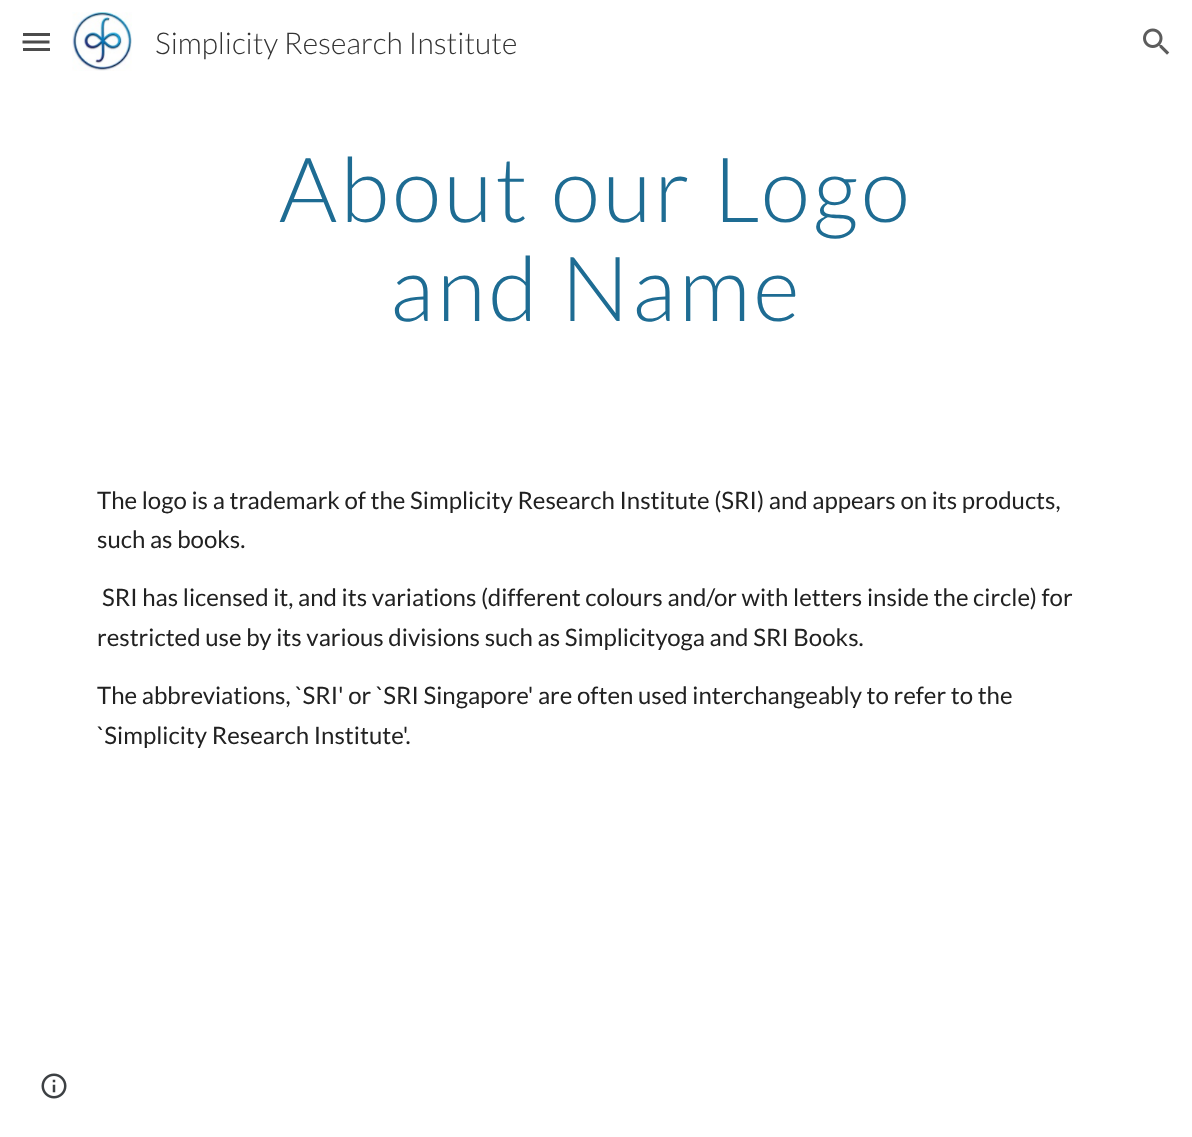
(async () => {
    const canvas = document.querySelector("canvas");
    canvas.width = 1192;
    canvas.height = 1137;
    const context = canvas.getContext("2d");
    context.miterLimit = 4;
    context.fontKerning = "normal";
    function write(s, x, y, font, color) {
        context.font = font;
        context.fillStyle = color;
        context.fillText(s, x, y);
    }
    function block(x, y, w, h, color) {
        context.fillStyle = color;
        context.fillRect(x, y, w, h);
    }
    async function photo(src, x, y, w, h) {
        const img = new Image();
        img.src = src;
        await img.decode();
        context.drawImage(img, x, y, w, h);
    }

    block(0, 0, 1192, 1137, "rgb(255, 255, 255)");
    block(23, 33, 27, 3, "rgb(75, 75, 75)");
    context.beginPath();
    context.moveTo(22.5, 42);
    context.lineTo(49.5, 42);
    context.strokeStyle = "rgb(75, 75, 75)";
    context.lineWidth = 3;
    context.stroke();
    block(23, 48, 27, 3, "rgb(75, 75, 75)");
    await photo("media/1.png", 72, 12, 60, 59);
    write("Simplicity Research Institute", 155, 54, "300 30px Lato", "rgb(51, 51, 51)");
    await photo("media/2.png", 1143, 28, 27, 27);
    context.letterSpacing = "3px";
    write("About our Logo", 279, 222, "300 90px Lato", "rgb(30, 108, 147)");
    write("and Name", 390, 321, "300 90px Lato", "rgb(30, 108, 147)");
    context.letterSpacing = "0px";
    write("The logo is a trademark of the Simplicity Research Institute (SRI) and appears on its products,", 97, 509, "24px Lato", "rgb(33, 33, 33)");
    write("such as books.", 97, 548, "24px Lato", "rgb(33, 33, 33)");
    write("SRI has licensed it, and its variations (different colours and/or with letters inside the circle) for", 102, 606, "24px Lato", "rgb(33, 33, 33)");
    write("restricted use by its various divisions such as Simplicityoga and SRI Books.", 97, 646, "24px Lato", "rgb(33, 33, 33)");
    write("The abbreviations, `SRI' or `SRI Singapore' are often used interchangeably to refer to the", 97, 704, "24px Lato", "rgb(33, 33, 33)");
    write("`Simplicity Research Institute'.", 97, 744, "24px Lato", "rgb(33, 33, 33)");
    await photo("media/3.png", 41, 1073, 26, 26);
})();
